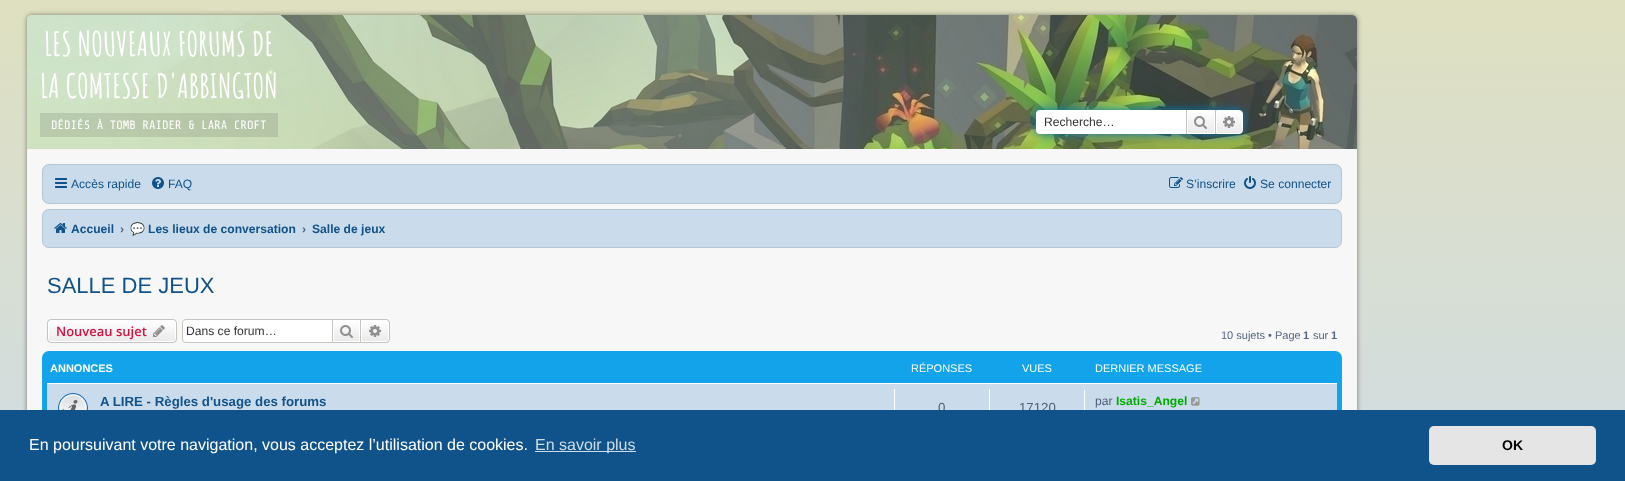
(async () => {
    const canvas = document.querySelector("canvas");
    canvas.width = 1625;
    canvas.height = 481;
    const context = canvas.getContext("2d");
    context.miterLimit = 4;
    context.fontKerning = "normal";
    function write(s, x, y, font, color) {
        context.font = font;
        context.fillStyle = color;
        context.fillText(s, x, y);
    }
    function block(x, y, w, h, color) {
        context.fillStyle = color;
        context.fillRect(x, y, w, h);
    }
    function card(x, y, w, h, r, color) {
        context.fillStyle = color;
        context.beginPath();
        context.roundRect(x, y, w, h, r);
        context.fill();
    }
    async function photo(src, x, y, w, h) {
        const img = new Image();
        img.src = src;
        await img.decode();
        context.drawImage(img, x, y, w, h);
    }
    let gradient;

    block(0, 0, 1625, 481, "rgb(255, 255, 255)");
    gradient = context.createLinearGradient(813, 0, 813, 481);
    gradient.addColorStop(0, "rgb(223, 224, 192)");
    gradient.addColorStop(1, "rgb(209, 220, 226)");
    context.fillStyle = gradient;
    context.fillRect(0, 0, 1625, 410);
    context.fillStyle = "rgba(0, 0, 0, 0.45)";
    context.filter = "blur(2.5px)";
    context.beginPath();
    context.roundRect(27, 15, 1330, 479, 5);
    context.fill();
    context.filter = "none";
    card(27, 15, 1330, 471, 5, "rgb(247, 247, 247)");
    await photo("media/1.png", 27, 15, 1330, 134);
    write("LES NOUVEAUX FORUMS DE", 44, 56, "bold 33px Amatic SC", "rgb(255, 255, 255)");
    write("LA COMTESSE D'ABBINGTON", 40, 98, "bold 33px Amatic SC", "rgb(255, 255, 255)");
    block(40, 113, 238, 24, "rgba(0, 0, 0, 0.1)");
    write("DÉDIÉS À TOMB RAIDER & LARA CROFT", 51, 129, "12.1px Share Tech Mono", "rgb(255, 255, 255)");
    context.fillStyle = "rgb(0, 117, 176)";
    context.filter = "blur(5px)";
    context.beginPath();
    context.roundRect(1036, 110, 207, 24, 4);
    context.fill();
    context.filter = "none";
    context.fillStyle = "rgb(255, 255, 255)";
    context.beginPath();
    context.roundRect(1036, 110, 150, 24, [4, 0, 0, 4]);
    context.fill();
    write("Recherche…", 1044, 126, "12.1px Liberation Sans", "rgb(51, 51, 51)");
    gradient = context.createLinearGradient(1201, 110, 1201, 134);
    gradient.addColorStop(0, "rgb(255, 255, 255)");
    gradient.addColorStop(1, "rgb(233, 233, 233)");
    context.fillStyle = gradient;
    context.fillRect(1188, 111, 26, 22);
    context.strokeStyle = "rgb(255, 255, 255)";
    context.strokeRect(1187.5, 110.5, 27, 23);
    block(1215, 110, 1, 24, "rgb(199, 195, 191)");
    block(1186, 110, 1, 24, "rgb(199, 195, 191)");
    await photo("media/2.png", 1194, 116, 13, 13);
    gradient = context.createLinearGradient(1230, 110, 1230, 134);
    gradient.addColorStop(0, "rgb(255, 255, 255)");
    gradient.addColorStop(1, "rgb(233, 233, 233)");
    context.fillStyle = gradient;
    context.beginPath();
    context.roundRect(1216.5, 110.5, 26, 23, [0, 3.5, 3.5, 0]);
    context.fill();
    context.stroke();
    await photo("media/3.png", 1223, 116, 12, 12);
    card(42, 164, 1300, 40, 7, "rgb(202, 220, 235)");
    context.beginPath();
    context.roundRect(42.5, 164.5, 1299, 39, 6.5);
    context.strokeStyle = "rgba(0, 0, 0, 0.1)";
    context.stroke();
    await photo("media/4.png", 55, 178, 12, 10);
    write("Accès rapide", 71, 188, "12.1px Liberation Sans", "rgb(16, 82, 137)");
    await photo("media/5.png", 152, 177, 12, 12);
    write("FAQ", 168, 188, "12.1px Liberation Sans", "rgb(16, 82, 137)");
    await photo("media/6.png", 1169, 177, 14, 11);
    write("S’inscrire", 1186, 188, "12.1px Liberation Sans", "rgb(16, 82, 137)");
    await photo("media/7.png", 1244, 176, 12, 13);
    write("Se connecter", 1260, 188, "12.1px Liberation Sans", "rgb(16, 82, 137)");
    card(42, 209, 1300, 39, 7, "rgb(202, 220, 235)");
    context.beginPath();
    context.roundRect(42.5, 209.5, 1299, 38, 6.5);
    context.stroke();
    await photo("media/8.png", 54, 223, 13, 10);
    write("Accueil", 71, 233, "bold 12.1px Liberation Sans", "rgb(16, 82, 137)");
    write("›", 120, 233, "bold 12.1px Liberation Sans", "rgb(83, 100, 130)");
    write("💬", 130, 233, "bold 12.1px Noto Color Emoji", "rgb(16, 82, 137)");
    write("Les lieux de conversation", 148, 233, "bold 12.1px Liberation Sans", "rgb(16, 82, 137)");
    write("›", 302, 233, "bold 12.1px Liberation Sans", "rgb(83, 100, 130)");
    write("Salle de jeux", 312, 233, "bold 12.1px Liberation Sans", "rgb(16, 82, 137)");
    write("SALLE DE JEUX", 47, 293, "22px Liberation Sans", "rgb(16, 82, 137)");
    context.save();
    context.beginPath();
    context.roundRect(47, 319, 130, 24, 4);
    context.clip();
    gradient = context.createLinearGradient(112, 320, 112, 342);
    gradient.addColorStop(0, "rgb(255, 255, 255)");
    gradient.addColorStop(1, "rgb(233, 233, 233)");
    context.fillStyle = gradient;
    context.fillRect(47, 320, 130, 22);
    context.restore();
    context.beginPath();
    context.roundRect(48.5, 320.5, 127, 21, 2.5);
    context.strokeStyle = "rgb(255, 255, 255)";
    context.stroke();
    context.beginPath();
    context.roundRect(47.5, 319.5, 129, 23, 3.5);
    context.strokeStyle = "rgb(199, 195, 191)";
    context.stroke();
    write("Nouveau sujet", 56, 336, "600 13px Open Sans", "rgb(211, 17, 65)");
    await photo("media/9.png", 153, 325, 12, 12);
    context.fillStyle = "rgb(255, 255, 255)";
    context.beginPath();
    context.roundRect(183, 320, 149, 22, [3, 0, 0, 3]);
    context.fill();
    context.fillStyle = "rgb(199, 195, 191)";
    context.beginPath();
    context.moveTo(186, 319);
    context.lineTo(332, 319);
    context.lineTo(332, 343);
    context.lineTo(186, 343);
    context.bezierCurveTo(184, 343, 182, 341, 182, 339);
    context.lineTo(182, 323);
    context.bezierCurveTo(182, 321, 184, 319, 186, 319);
    context.closePath();
    context.moveTo(186, 320);
    context.lineTo(332, 320);
    context.lineTo(332, 342);
    context.lineTo(186, 342);
    context.bezierCurveTo(184, 342, 183, 341, 183, 339);
    context.lineTo(183, 323);
    context.bezierCurveTo(183, 321, 184, 320, 186, 320);
    context.closePath();
    context.fill("evenodd");
    write("Dans ce forum…", 186, 335, "12.1px Liberation Sans", "rgb(51, 51, 51)");
    gradient = context.createLinearGradient(347, 320, 347, 342);
    gradient.addColorStop(0, "rgb(255, 255, 255)");
    gradient.addColorStop(1, "rgb(233, 233, 233)");
    context.fillStyle = gradient;
    context.fillRect(334, 321, 25, 20);
    context.strokeStyle = "rgb(255, 255, 255)";
    context.strokeRect(333.5, 320.5, 26, 21);
    context.strokeStyle = "rgb(199, 195, 191)";
    context.strokeRect(332.5, 319.5, 28, 23);
    await photo("media/10.png", 340, 325, 13, 13);
    gradient = context.createLinearGradient(375, 320, 375, 342);
    gradient.addColorStop(0, "rgb(255, 255, 255)");
    gradient.addColorStop(1, "rgb(233, 233, 233)");
    context.fillStyle = gradient;
    context.beginPath();
    context.roundRect(361.5, 320.5, 27, 21, [0, 2.5, 2.5, 0]);
    context.fill();
    context.strokeStyle = "rgb(255, 255, 255)";
    context.stroke();
    context.fillStyle = "rgb(199, 195, 191)";
    context.beginPath();
    context.moveTo(361, 319);
    context.lineTo(386, 319);
    context.bezierCurveTo(388, 319, 390, 321, 390, 323);
    context.lineTo(390, 339);
    context.bezierCurveTo(390, 341, 388, 343, 386, 343);
    context.lineTo(361, 343);
    context.closePath();
    context.moveTo(361, 320);
    context.lineTo(386, 320);
    context.bezierCurveTo(387.5, 320, 389, 321.5, 389, 323);
    context.lineTo(389, 339);
    context.bezierCurveTo(389, 340.5, 387.5, 342, 386, 342);
    context.lineTo(361, 342);
    context.closePath();
    context.fill("evenodd");
    await photo("media/11.png", 369, 325, 12, 12);
    write("10 sujets • Page", 1221, 339, "11px Liberation Sans", "rgb(83, 100, 130)");
    write("1", 1303, 339, "bold 11px Liberation Sans", "rgb(83, 100, 130)");
    write("sur", 1313, 339, "11px Liberation Sans", "rgb(83, 100, 130)");
    write("1", 1331, 339, "bold 11px Liberation Sans", "rgb(83, 100, 130)");
    card(42, 351, 1300, 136, 7, "rgb(18, 163, 235)");
    write("ANNONCES", 50, 372, "bold 11px Liberation Sans", "rgb(255, 255, 255)");
    write("RÉPONSES", 911, 372, "11px Liberation Sans", "rgb(255, 255, 255)");
    write("VUES", 1022, 372, "11px Liberation Sans", "rgb(255, 255, 255)");
    write("DERNIER MESSAGE", 1095, 372, "11px Liberation Sans", "rgb(255, 255, 255)");
    block(47, 384, 1290, 26, "rgb(202, 220, 235)");
    block(47, 383, 1290, 1, "rgb(255, 255, 255)");
    await photo("media/12.png", 58, 393, 30, 17);
    await photo("media/13.png", 62, 408, 3, 2);
    write("A LIRE - Règles d'usage des forums", 100, 406, "bold 13.25px Liberation Sans", "rgb(16, 82, 137)");
    block(894, 389, 1, 21, "rgb(255, 255, 255)");
    write("0", 938, 412, "13.25px Liberation Sans", "rgb(76, 93, 119)");
    block(989, 389, 1, 21, "rgb(255, 255, 255)");
    write("17120", 1019, 412, "13.25px Liberation Sans", "rgb(76, 93, 119)");
    block(1084, 390, 1, 20, "rgb(255, 255, 255)");
    write("par", 1095, 405, "12.1px Liberation Sans", "rgb(76, 93, 119)");
    write("Isatis_Angel", 1116, 405, "bold 12.1px Liberation Sans", "rgb(0, 170, 0)");
    await photo("media/14.png", 1191, 397, 9, 9);
    block(0, 410, 1625, 71, "rgb(15, 83, 138)");
    write("En poursuivant votre navigation, vous acceptez l’utilisation de cookies.", 29, 450, "16px Liberation Sans", "rgb(255, 255, 255)");
    block(535, 451, 101, 1, "rgb(207, 221, 232)");
    write("En savoir plus", 535, 450, "16px Liberation Sans", "rgb(207, 221, 232)");
    card(1429, 426, 167, 39, 5, "rgb(229, 229, 229)");
    write("OK", 1502, 450, "bold 14px Liberation Sans", "rgb(0, 0, 0)");
})();
